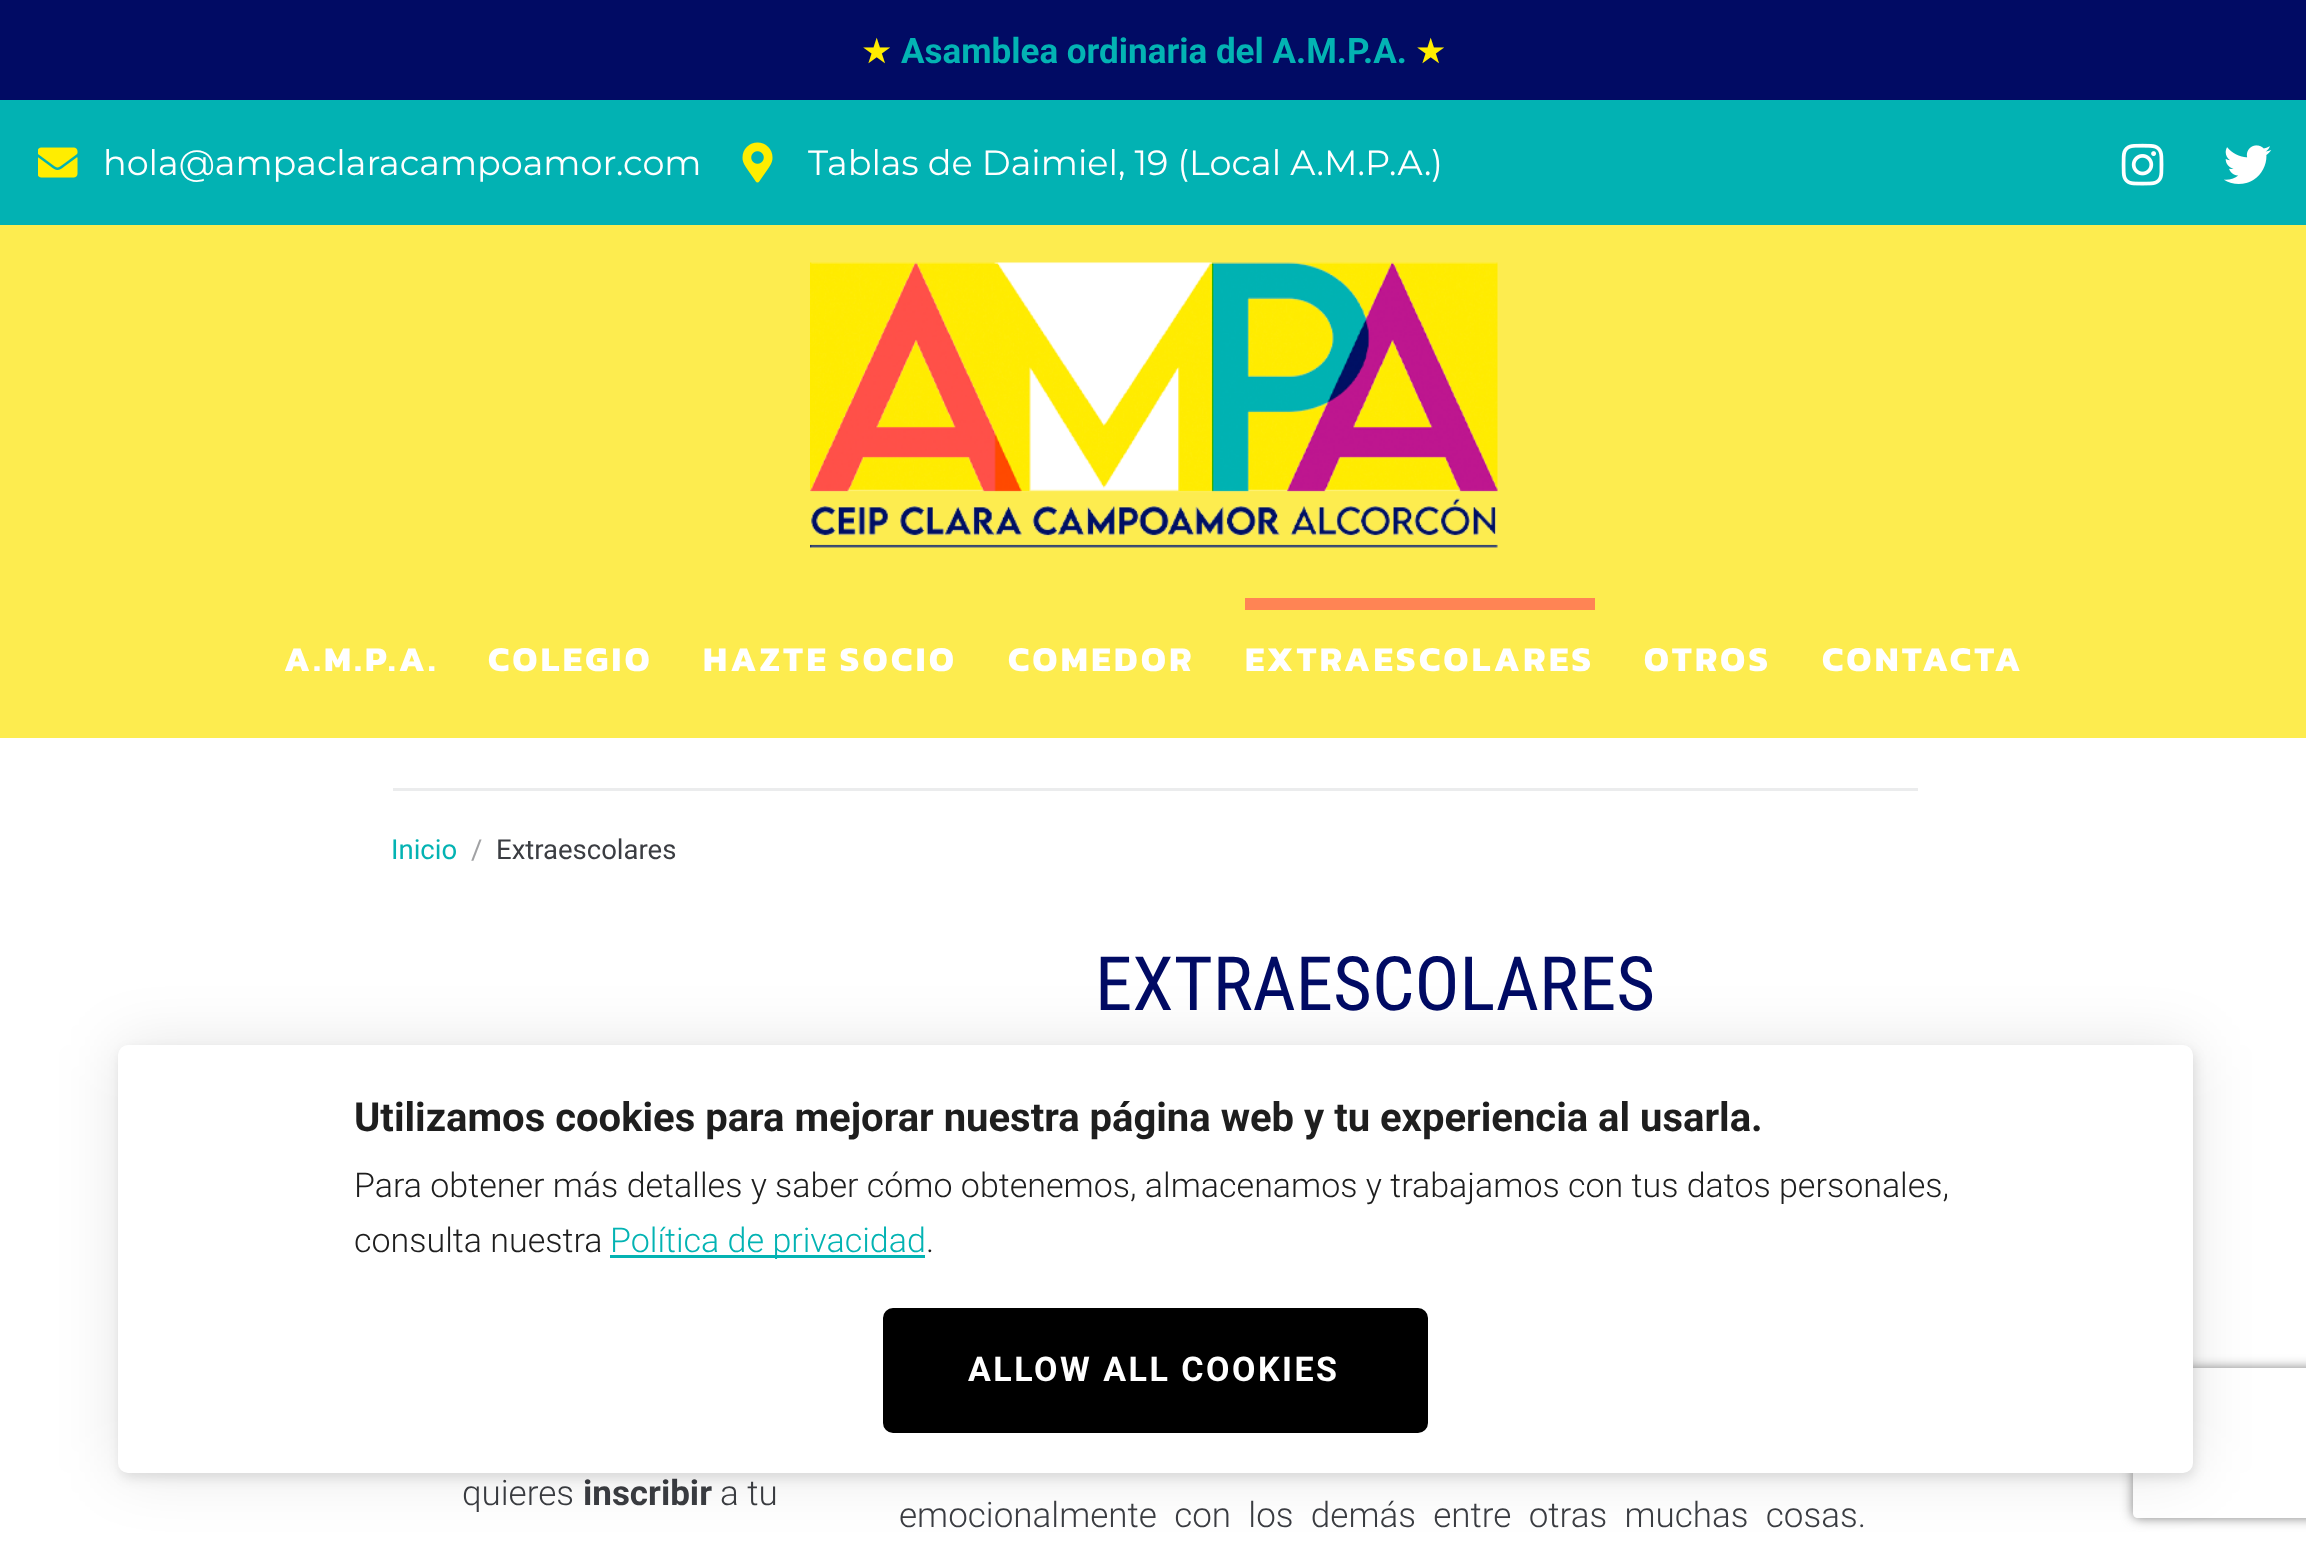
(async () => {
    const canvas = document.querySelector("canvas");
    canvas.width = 2306;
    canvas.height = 1551;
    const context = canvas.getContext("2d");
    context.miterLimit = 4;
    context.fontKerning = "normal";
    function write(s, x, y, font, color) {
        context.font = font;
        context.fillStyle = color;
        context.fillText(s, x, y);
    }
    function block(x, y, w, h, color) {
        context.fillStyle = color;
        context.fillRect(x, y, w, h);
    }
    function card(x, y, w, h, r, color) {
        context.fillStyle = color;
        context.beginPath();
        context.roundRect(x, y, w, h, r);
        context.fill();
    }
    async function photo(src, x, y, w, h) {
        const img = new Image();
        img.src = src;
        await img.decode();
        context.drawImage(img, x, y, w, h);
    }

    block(0, 0, 2306, 1551, "rgb(255, 255, 255)");
    block(0, 0, 2306, 100, "rgb(1, 11, 100)");
    write("★", 861, 63, "35px DejaVu Sans", "rgb(255, 237, 0)");
    write("Asamblea ordinaria del A.M.P.A.", 901, 63, "bold 35px Roboto", "rgb(3, 179, 179)");
    write("★", 1415, 63, "35px DejaVu Sans", "rgb(255, 237, 0)");
    block(0, 100, 2306, 125, "rgb(2, 178, 179)");
    await photo("media/1.png", 38, 147, 40, 31);
    write("hola@ampaclaracampoamor.com", 103, 175, "35px Montserrat", "rgb(255, 255, 255)");
    await photo("media/2.png", 742, 142, 31, 41);
    write("Tablas de Daimiel, 19 (Local A.M.P.A.)", 808, 175, "35px Montserrat", "rgb(255, 255, 255)");
    await photo("media/3.png", 2121, 143, 43, 43);
    await photo("media/4.png", 2224, 145, 48, 39);
    block(0, 225, 2306, 513, "rgb(253, 236, 79)");
    await photo("media/5.png", 810, 262, 688, 286);
    context.letterSpacing = "3.5px";
    write("A.M.P.A.", 284, 671, "bold 35px Kanit", "rgb(255, 255, 255)");
    write("COLEGIO", 488, 671, "bold 35px Kanit", "rgb(255, 255, 255)");
    write("HAZTE SOCIO", 703, 671, "bold 35px Kanit", "rgb(255, 255, 255)");
    write("COMEDOR", 1008, 671, "bold 35px Kanit", "rgb(255, 255, 255)");
    block(1245, 598, 350, 12, "rgb(255, 132, 84)");
    write("EXTRAESCOLARES", 1245, 671, "bold 35px Kanit", "rgb(255, 255, 255)");
    write("OTROS", 1644, 671, "bold 35px Kanit", "rgb(255, 255, 255)");
    write("CONTACTA", 1822, 671, "bold 35px Kanit", "rgb(255, 255, 255)");
    block(393, 788, 1525, 3, "rgb(235, 236, 237)");
    context.letterSpacing = "0px";
    write("Inicio", 391, 859, "27.5px Roboto", "rgb(3, 179, 179)");
    write("/", 471, 859, "27.5px Roboto", "rgb(161, 162, 164)");
    write("Extraescolares", 496, 859, "27.5px Roboto", "rgb(59, 61, 66)");
    write("EXTRAESCOLARES", 1095, 1010, "75px Roboto Condensed", "rgb(1, 11, 100)");
    write("quieres", 462, 1505, "300 35px Roboto", "rgb(59, 61, 66)");
    write("inscribir", 583, 1505, "bold 35px Roboto", "rgb(59, 61, 66)");
    write("a tu", 720, 1505, "300 35px Roboto", "rgb(59, 61, 66)");
    context.wordSpacing = "8.75px";
    write("emocionalmente con los demás entre otras muchas cosas.", 899, 1527, "300 35px Roboto", "rgb(59, 61, 66)");
    context.fillStyle = "rgba(0, 0, 0, 0.1)";
    context.filter = "blur(6px)";
    context.beginPath();
    context.roundRect(120, 1050, 2075, 428, 10);
    context.fill();
    context.filter = "none";
    context.filter = "blur(31px)";
    context.beginPath();
    context.roundRect(118, 1045, 2075, 428, 10);
    context.fill();
    context.filter = "none";
    context.save();
    context.beginPath();
    context.moveTo(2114, 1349);
    context.lineTo(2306, 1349);
    context.lineTo(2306, 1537);
    context.lineTo(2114, 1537);
    context.closePath();
    context.moveTo(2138, 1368);
    context.lineTo(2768, 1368);
    context.bezierCurveTo(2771, 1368, 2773, 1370, 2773, 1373);
    context.lineTo(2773, 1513);
    context.bezierCurveTo(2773, 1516, 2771, 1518, 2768, 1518);
    context.lineTo(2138, 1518);
    context.bezierCurveTo(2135, 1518, 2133, 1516, 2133, 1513);
    context.lineTo(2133, 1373);
    context.bezierCurveTo(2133, 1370, 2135, 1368, 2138, 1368);
    context.closePath();
    context.clip("evenodd");
    context.fillStyle = "rgb(128, 128, 128)";
    context.filter = "blur(6px)";
    context.beginPath();
    context.roundRect(2133, 1368, 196, 150, 5);
    context.fill();
    context.filter = "none";
    context.restore();
    card(118, 1045, 2075, 428, 10, "rgb(255, 255, 255)");
    context.wordSpacing = "0px";
    write("Utilizamos cookies para mejorar nuestra página web y tu experiencia al usarla.", 354, 1131, "bold 40px Roboto", "rgb(30, 30, 30)");
    write("Para obtener más detalles y saber cómo obtenemos, almacenamos y trabajamos con tus datos personales,", 354, 1197, "300 34px Roboto", "rgb(30, 30, 30)");
    write("consulta nuestra", 354, 1252, "300 34px Roboto", "rgb(30, 30, 30)");
    block(610, 1255, 315, 3, "rgb(3, 179, 179)");
    write("Política de privacidad", 610, 1252, "300 34px Roboto", "rgb(3, 179, 179)");
    write(".", 926, 1252, "300 34px Roboto", "rgb(30, 30, 30)");
    context.fillStyle = "rgb(0, 0, 0)";
    context.beginPath();
    context.roundRect(884.5, 1309.5, 542, 122, 8.5);
    context.fill();
    context.strokeStyle = "rgb(0, 0, 0)";
    context.lineWidth = 3;
    context.stroke();
    context.letterSpacing = "2.5px";
    write("ALLOW ALL COOKIES", 968, 1381, "bold 34px Roboto", "rgb(255, 255, 255)");
})();
